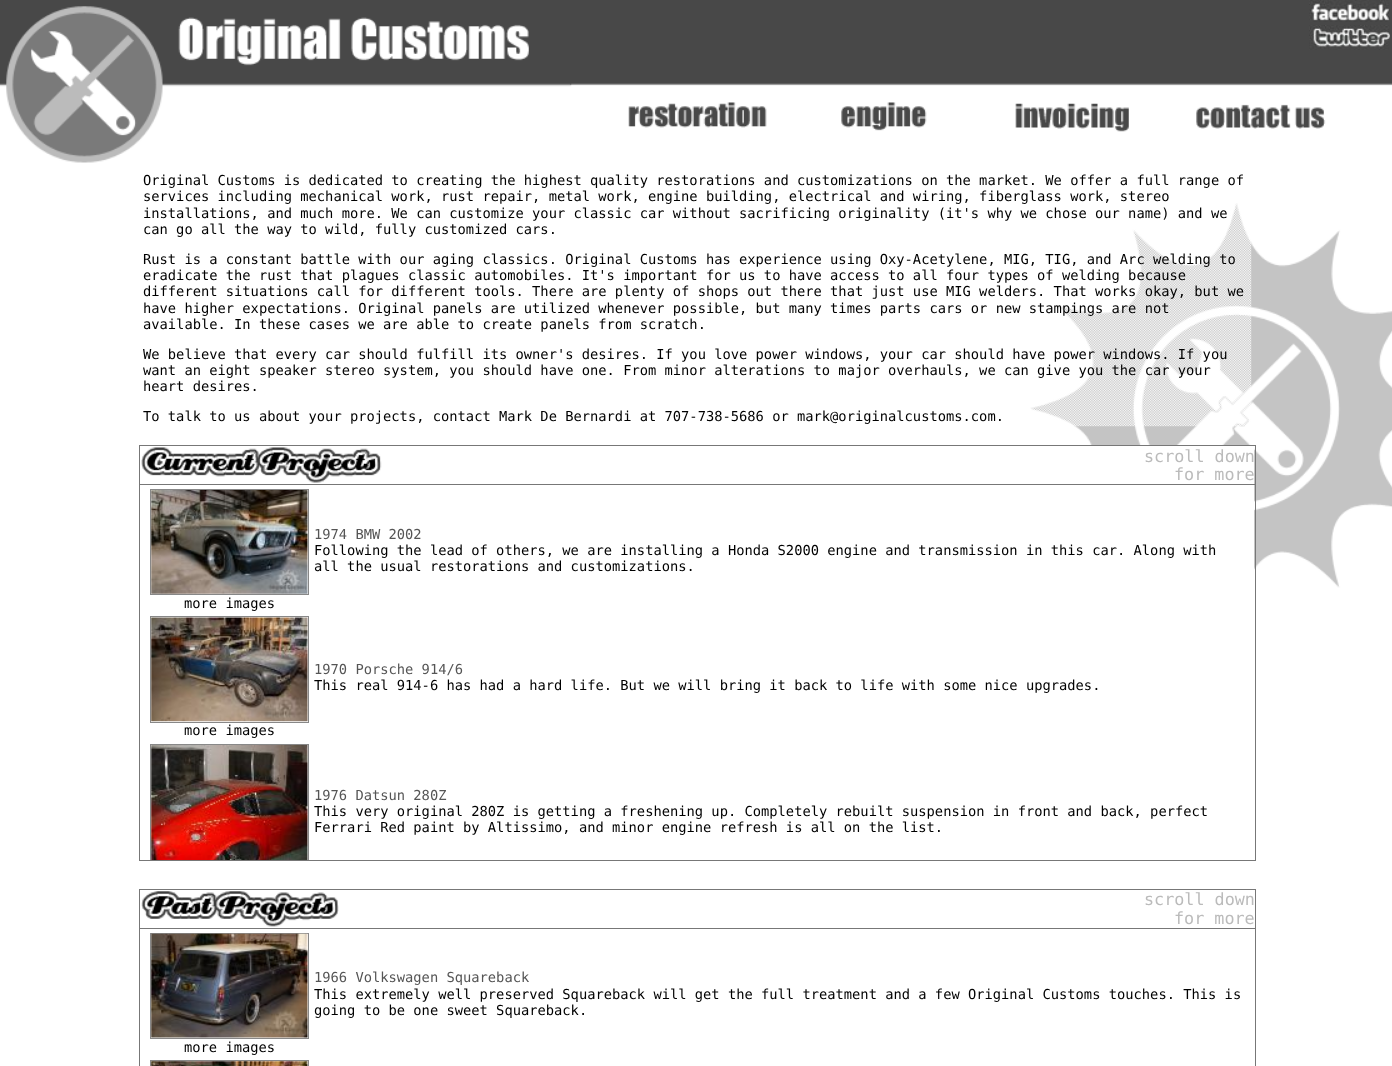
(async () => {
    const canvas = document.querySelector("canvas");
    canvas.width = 1392;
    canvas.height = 1066;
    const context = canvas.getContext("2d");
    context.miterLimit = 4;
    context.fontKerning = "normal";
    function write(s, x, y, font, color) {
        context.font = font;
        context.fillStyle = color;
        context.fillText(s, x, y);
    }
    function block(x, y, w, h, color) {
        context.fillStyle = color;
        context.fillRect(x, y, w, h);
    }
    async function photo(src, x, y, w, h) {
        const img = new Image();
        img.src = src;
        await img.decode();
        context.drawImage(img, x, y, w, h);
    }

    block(0, 0, 1392, 1066, "rgb(255, 255, 255)");
    await photo("media/1.png", 0, 0, 1392, 86);
    await photo("media/2.png", 0, 6, 572, 157);
    await photo("media/3.png", 1309, 0, 81, 22);
    await photo("media/4.png", 1309, 25, 81, 25);
    await photo("media/5.png", 628, 102, 139, 26);
    await photo("media/6.png", 841, 102, 86, 29);
    await photo("media/7.png", 1015, 103, 114, 29);
    await photo("media/8.png", 1196, 104, 130, 25);
    await photo("media/10.png", 1030, 203, 362, 412);
    await photo("media/9.png", 1030, 203, 222, 224);
    write("Original Customs is dedicated to creating the highest quality restorations and customizations on the market. We offer a full range of", 143, 185, "13.75px DejaVu Sans Mono", "rgb(0, 0, 0)");
    write("services including mechanical work, rust repair, metal work, engine building, electrical and wiring, fiberglass work, stereo", 143, 201, "13.75px DejaVu Sans Mono", "rgb(0, 0, 0)");
    write("installations, and much more. We can customize your classic car without sacrificing originality (it's why we chose our name) and we", 143, 218, "13.75px DejaVu Sans Mono", "rgb(0, 0, 0)");
    write("can go all the way to wild, fully customized cars.", 143, 234, "13.75px DejaVu Sans Mono", "rgb(0, 0, 0)");
    write("Rust is a constant battle with our aging classics. Original Customs has experience using Oxy-Acetylene, MIG, TIG, and Arc welding to", 143, 264, "13.75px DejaVu Sans Mono", "rgb(0, 0, 0)");
    write("eradicate the rust that plagues classic automobiles. It's important for us to have access to all four types of welding because", 143, 280, "13.75px DejaVu Sans Mono", "rgb(0, 0, 0)");
    write("different situations call for different tools. There are plenty of shops out there that just use MIG welders. That works okay, but we", 143, 296, "13.75px DejaVu Sans Mono", "rgb(0, 0, 0)");
    write("have higher expectations. Original panels are utilized whenever possible, but many times parts cars or new stampings are not", 143, 313, "13.75px DejaVu Sans Mono", "rgb(0, 0, 0)");
    write("available. In these cases we are able to create panels from scratch.", 143, 329, "13.75px DejaVu Sans Mono", "rgb(0, 0, 0)");
    write("We believe that every car should fulfill its owner's desires. If you love power windows, your car should have power windows. If you", 143, 359, "13.75px DejaVu Sans Mono", "rgb(0, 0, 0)");
    write("want an eight speaker stereo system, you should have one. From minor alterations to major overhauls, we can give you the car your", 143, 375, "13.75px DejaVu Sans Mono", "rgb(0, 0, 0)");
    write("heart desires.", 143, 391, "13.75px DejaVu Sans Mono", "rgb(0, 0, 0)");
    write("To talk to us about your projects, contact Mark De Bernardi at 707-738-5686 or mark@originalcustoms.com.", 143, 421, "13.75px DejaVu Sans Mono", "rgb(0, 0, 0)");
    block(1057, 446, 197, 169, "rgb(255, 255, 255)");
    context.strokeStyle = "rgb(119, 119, 119)";
    context.strokeRect(139.5, 445.5, 1116, 39);
    await photo("media/11.png", 141, 447, 241, 36);
    write("scroll down", 1144, 462, "16.75px DejaVu Sans Mono", "rgb(187, 187, 187)");
    write("for more", 1174, 480, "16.75px DejaVu Sans Mono", "rgb(187, 187, 187)");
    block(1255, 485, 1, 376, "rgb(119, 119, 119)");
    block(139, 860, 1117, 1, "rgb(119, 119, 119)");
    block(139, 485, 1, 376, "rgb(119, 119, 119)");
    write("1974 BMW 2002", 314, 539, "13.75px DejaVu Sans Mono", "rgb(85, 85, 85)");
    write("Following the lead of others, we are installing a Honda S2000 engine and transmission in this car. Along with", 314, 555, "13.75px DejaVu Sans Mono", "rgb(0, 0, 0)");
    write("all the usual restorations and customizations.", 314, 571, "13.75px DejaVu Sans Mono", "rgb(0, 0, 0)");
    context.strokeStyle = "rgb(136, 136, 136)";
    context.strokeRect(150.5, 489.5, 158, 105);
    await photo("media/12.png", 151, 490, 157, 104);
    write("more images", 184, 608, "13.75px DejaVu Sans Mono", "rgb(0, 0, 0)");
    write("1970 Porsche 914/6", 314, 674, "13.75px DejaVu Sans Mono", "rgb(85, 85, 85)");
    write("This real 914-6 has had a hard life. But we will bring it back to life with some nice upgrades.", 314, 690, "13.75px DejaVu Sans Mono", "rgb(0, 0, 0)");
    context.strokeRect(150.5, 616.5, 158, 106);
    await photo("media/13.png", 151, 617, 157, 105);
    write("more images", 184, 735, "13.75px DejaVu Sans Mono", "rgb(0, 0, 0)");
    context.save();
    context.beginPath();
    context.rect(140, 485, 1115, 375);
    context.clip();
    context.strokeRect(150.5, 744.5, 158, 118);
    context.restore();
    await photo("media/14.png", 151, 745, 157, 115);
    write("1976 Datsun 280Z", 314, 800, "13.75px DejaVu Sans Mono", "rgb(85, 85, 85)");
    write("This very original 280Z is getting a freshening up. Completely rebuilt suspension in front and back, perfect", 314, 816, "13.75px DejaVu Sans Mono", "rgb(0, 0, 0)");
    write("Ferrari Red paint by Altissimo, and minor engine refresh is all on the list.", 314, 832, "13.75px DejaVu Sans Mono", "rgb(0, 0, 0)");
    context.strokeStyle = "rgb(119, 119, 119)";
    context.strokeRect(139.5, 889.5, 1116, 39);
    await photo("media/15.png", 141, 891, 198, 36);
    write("scroll down", 1144, 905, "16.75px DejaVu Sans Mono", "rgb(187, 187, 187)");
    write("for more", 1174, 924, "16.75px DejaVu Sans Mono", "rgb(187, 187, 187)");
    block(1255, 929, 1, 137, "rgb(119, 119, 119)");
    block(139, 929, 1, 137, "rgb(119, 119, 119)");
    write("1966 Volkswagen Squareback", 314, 982, "13.75px DejaVu Sans Mono", "rgb(85, 85, 85)");
    write("This extremely well preserved Squareback will get the full treatment and a few Original Customs touches. This is", 314, 999, "13.75px DejaVu Sans Mono", "rgb(0, 0, 0)");
    write("going to be one sweet Squareback.", 314, 1015, "13.75px DejaVu Sans Mono", "rgb(0, 0, 0)");
    context.strokeStyle = "rgb(136, 136, 136)";
    context.strokeRect(150.5, 933.5, 158, 105);
    await photo("media/16.png", 151, 933, 157, 105);
    write("more images", 184, 1052, "13.75px DejaVu Sans Mono", "rgb(0, 0, 0)");
    context.strokeRect(150.5, 1060.5, 158, 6);
    await photo("media/17.png", 151, 1061, 157, 5);
})();
